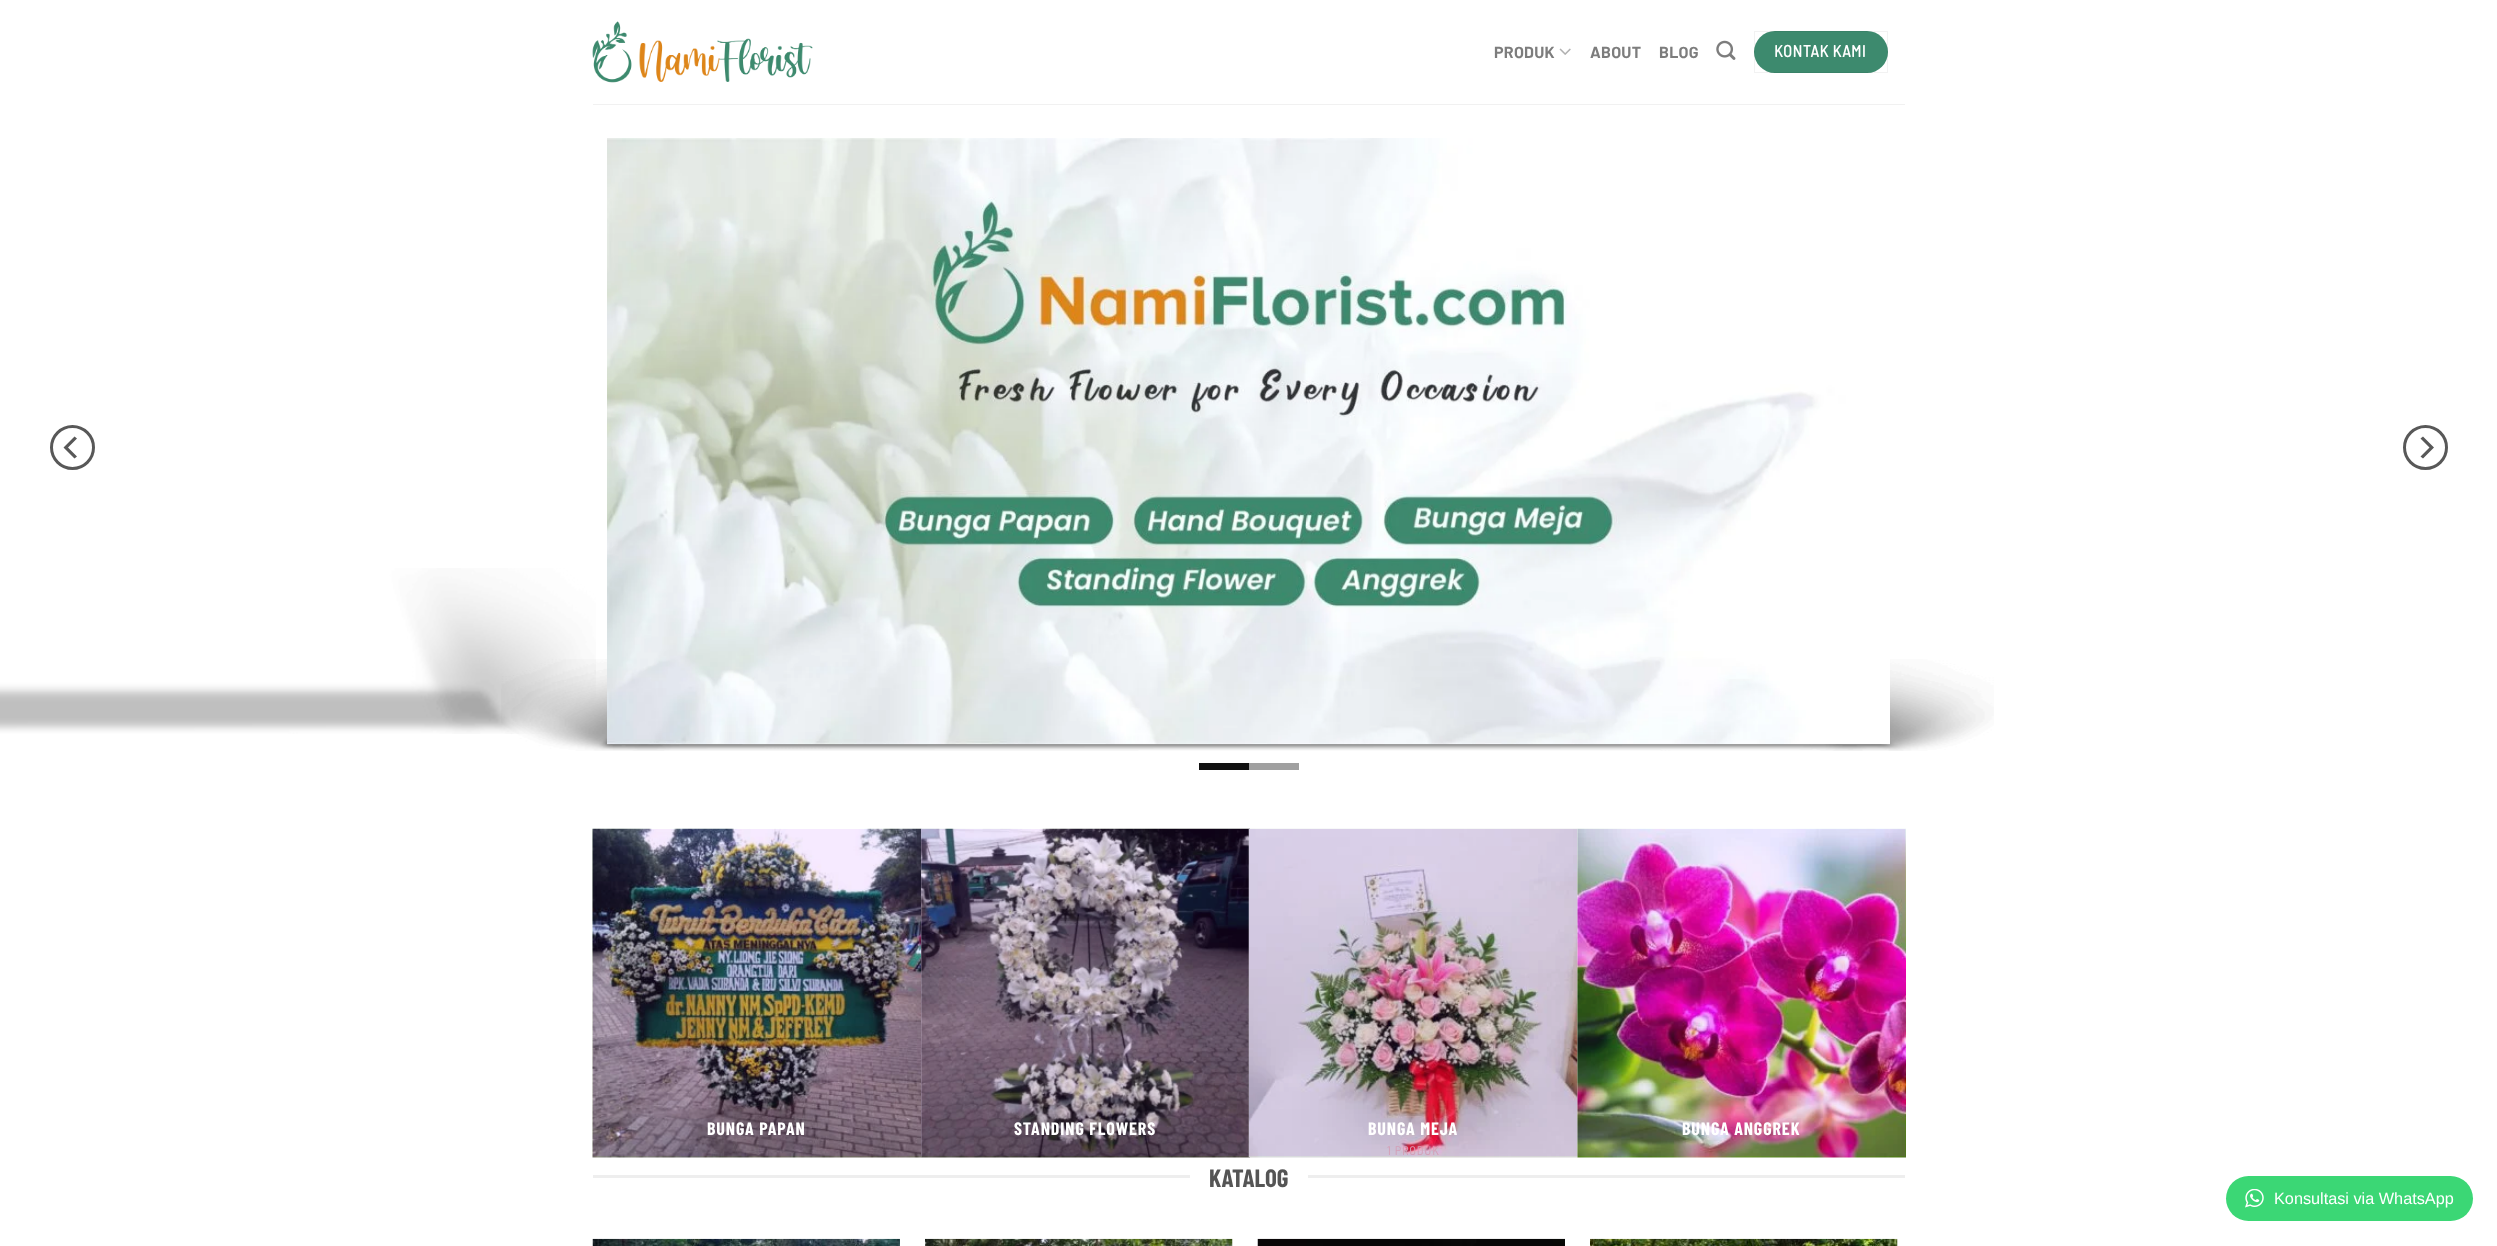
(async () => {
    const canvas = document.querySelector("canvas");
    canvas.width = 2497;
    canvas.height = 1246;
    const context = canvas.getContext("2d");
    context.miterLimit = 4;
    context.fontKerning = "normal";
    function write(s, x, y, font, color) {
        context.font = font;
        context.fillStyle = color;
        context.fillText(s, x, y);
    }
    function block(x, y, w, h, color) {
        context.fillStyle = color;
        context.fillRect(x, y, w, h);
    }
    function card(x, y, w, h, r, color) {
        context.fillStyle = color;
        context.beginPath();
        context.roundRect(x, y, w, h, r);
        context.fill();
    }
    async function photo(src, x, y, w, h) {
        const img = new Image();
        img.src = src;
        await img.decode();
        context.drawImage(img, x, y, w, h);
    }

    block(0, 0, 2497, 1246, "rgb(255, 255, 255)");
    await photo("media/1.png", 592, 21, 221, 62);
    context.letterSpacing = "0.25px";
    write("PRODUK", 1494, 58, "bold 16px Barlow", "rgb(125, 125, 125)");
    await photo("media/2.png", 1559, 48, 12, 7);
    write("ABOUT", 1590, 58, "bold 16px Barlow", "rgb(125, 125, 125)");
    write("BLOG", 1659, 58, "bold 16px Barlow", "rgb(125, 125, 125)");
    await photo("media/3.png", 1716, 40, 20, 20);
    card(1754, 31, 134, 42, 21, "rgb(61, 138, 110)");
    context.strokeStyle = "rgba(0, 0, 0, 0.05)";
    context.strokeRect(1754.5, 31.5, 133, 41);
    context.letterSpacing = "0.5px";
    write("KONTAK KAMI", 1774, 57, "bold 16.5px Barlow Semi Condensed", "rgb(255, 255, 255)");
    block(593, 104, 1312, 1, "rgb(241, 241, 241)");
    await photo("media/4.png", 0, 568, 596, 166);
    await photo("media/6.png", 501, 659, 1493, 92);
    await photo("media/5.png", 607, 138, 1283, 607);
    context.beginPath();
    context.arc(72.5, 447.5, 21, 0, Math.PI * 2);
    context.strokeStyle = "rgb(88, 88, 88)";
    context.lineWidth = 3;
    context.stroke();
    context.fillStyle = "rgb(88, 88, 88)";
    context.beginPath();
    context.moveTo(63.5, 447.5);
    context.lineTo(74.5, 458.5);
    context.lineTo(77, 456.5);
    context.lineTo(68, 447.5);
    context.lineTo(77, 438.5);
    context.lineTo(74.5, 436.5);
    context.closePath();
    context.fill();
    context.beginPath();
    context.arc(2425.5, 447.5, 21, 0, Math.PI * 2);
    context.stroke();
    context.beginPath();
    context.moveTo(2434, 447.5);
    context.lineTo(2423, 436.5);
    context.lineTo(2420.5, 438.5);
    context.lineTo(2429.5, 447.5);
    context.lineTo(2420.5, 456.5);
    context.lineTo(2423, 458.5);
    context.closePath();
    context.fill();
    block(1199, 763, 50, 7, "rgb(17, 17, 17)");
    block(1249, 763, 50, 7, "rgb(160, 160, 160)");
    await photo("media/7.png", 592, 828, 330, 330);
    context.letterSpacing = "0.9px";
    write("BUNGA PAPAN", 707, 1135, "bold 18px Barlow Condensed", "rgb(255, 255, 255)");
    await photo("media/8.png", 921, 828, 329, 330);
    block(921, 829, 328, 327, "rgba(155, 23, 250, 0.09)");
    write("STANDING FLOWERS", 1014, 1135, "bold 18px Barlow Condensed", "rgb(255, 255, 255)");
    await photo("media/9.png", 1248, 828, 330, 330);
    block(1249, 829, 329, 327, "rgba(155, 23, 250, 0.09)");
    write("BUNGA MEJA", 1368, 1135, "bold 18px Barlow Condensed", "rgb(255, 255, 255)");
    context.letterSpacing = "0.75px";
    write("1 PRODUK", 1387, 1155, "12.5px Barlow Semi Condensed", "rgb(212, 159, 183)");
    await photo("media/10.png", 1577, 828, 329, 330);
    context.letterSpacing = "0.9px";
    write("BUNGA ANGGREK", 1682, 1135, "bold 18px Barlow Condensed", "rgb(255, 255, 255)");
    block(593, 1175, 597, 3, "rgb(238, 238, 238)");
    context.letterSpacing = "0px";
    write("KATALOG", 1209, 1187, "bold 25px Barlow Condensed", "rgb(85, 85, 85)");
    block(1308, 1175, 597, 3, "rgb(238, 238, 238)");
    await photo("media/11.png", 592, 1238, 308, 8);
    await photo("media/12.png", 925, 1238, 308, 8);
    await photo("media/13.png", 1257, 1238, 308, 8);
    await photo("media/14.png", 1590, 1238, 308, 8);
    card(2226, 1176, 247, 45, 22.5, "rgb(59, 215, 117)");
    await photo("media/15.png", 2245, 1189, 19, 19);
    write("Konsultasi via WhatsApp", 2274, 1204, "16.25px Liberation Sans", "rgb(255, 255, 255)");
})();
